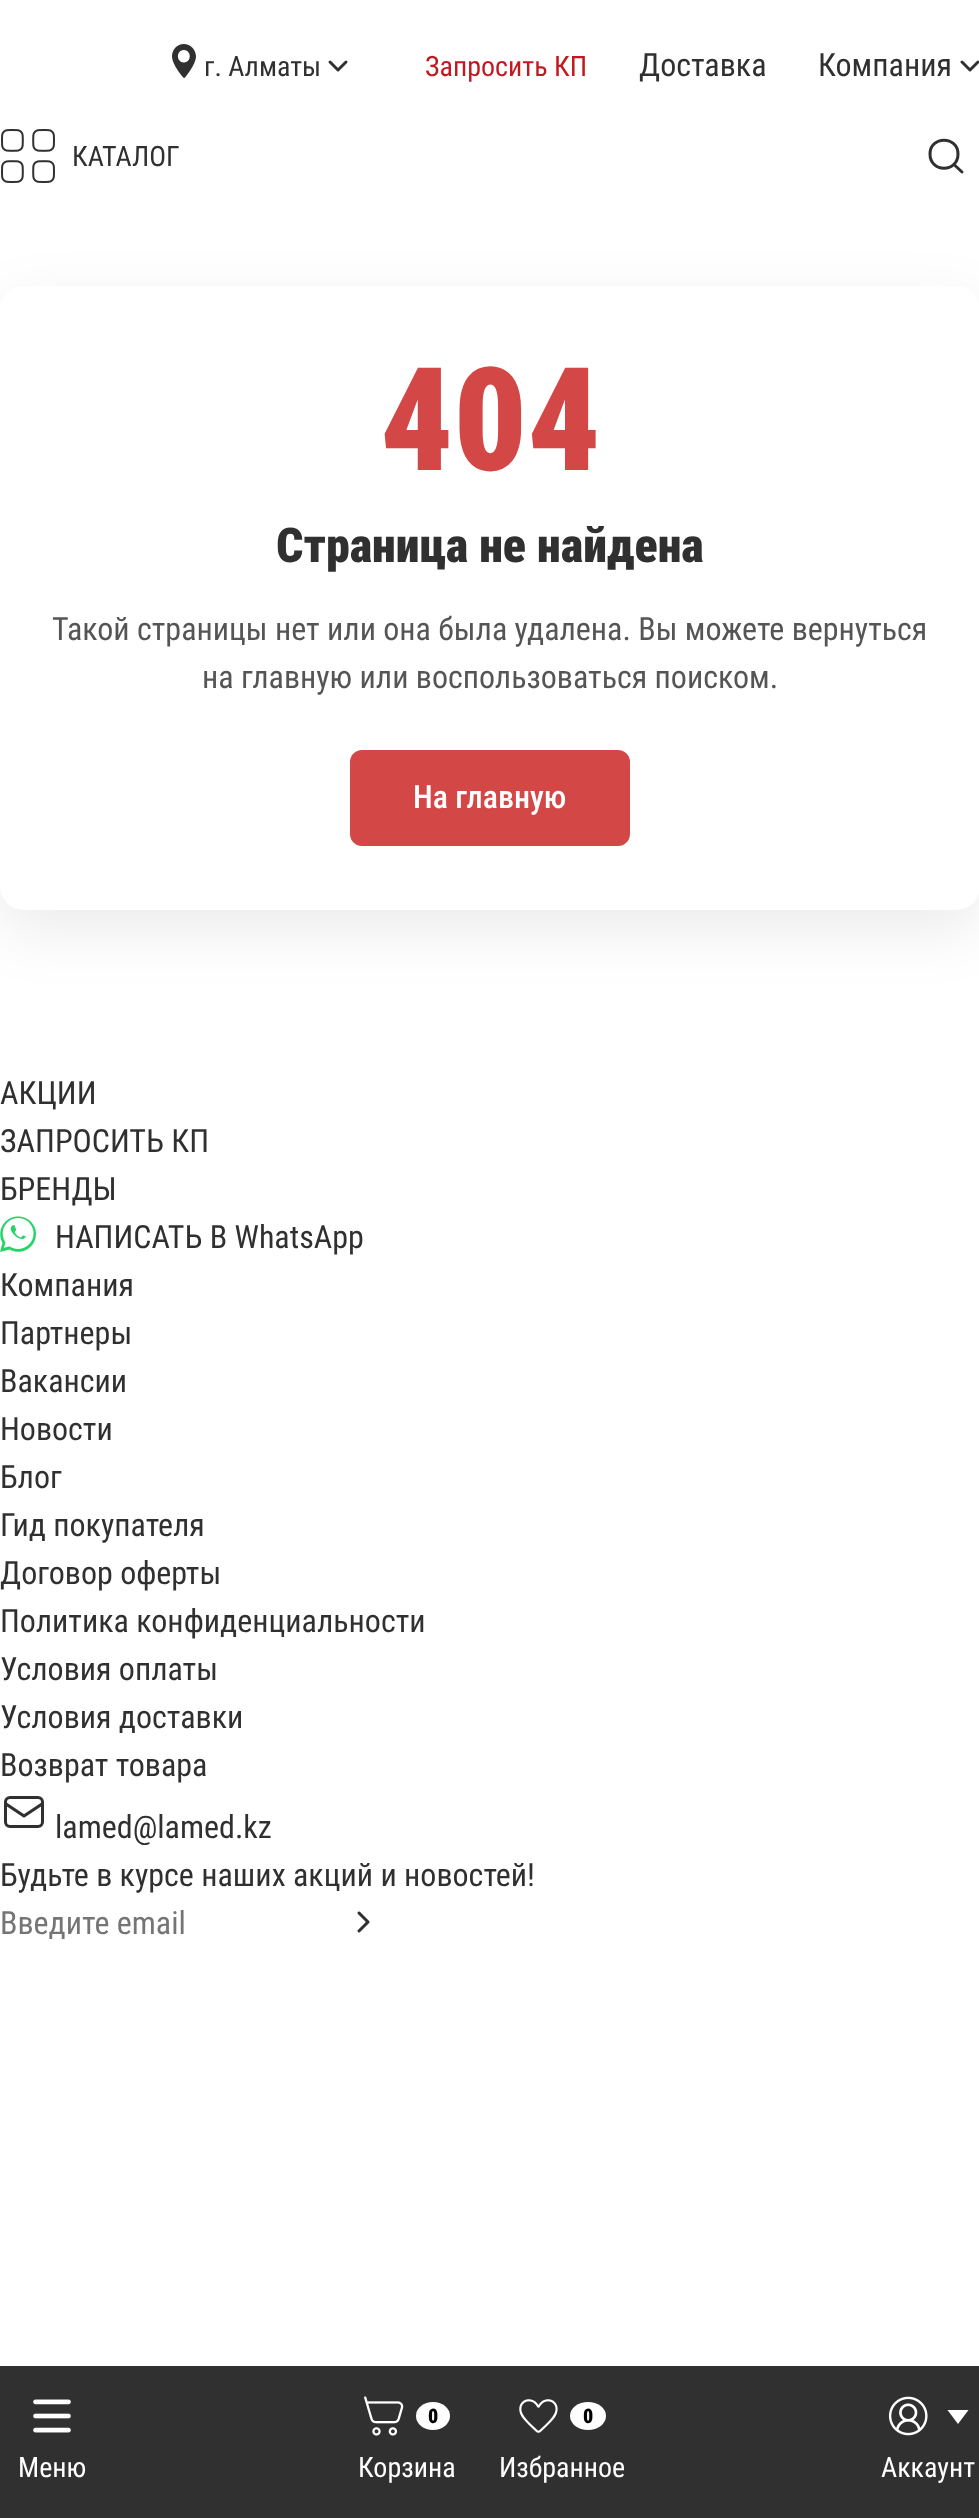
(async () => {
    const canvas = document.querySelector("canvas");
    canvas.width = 979;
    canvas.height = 2518;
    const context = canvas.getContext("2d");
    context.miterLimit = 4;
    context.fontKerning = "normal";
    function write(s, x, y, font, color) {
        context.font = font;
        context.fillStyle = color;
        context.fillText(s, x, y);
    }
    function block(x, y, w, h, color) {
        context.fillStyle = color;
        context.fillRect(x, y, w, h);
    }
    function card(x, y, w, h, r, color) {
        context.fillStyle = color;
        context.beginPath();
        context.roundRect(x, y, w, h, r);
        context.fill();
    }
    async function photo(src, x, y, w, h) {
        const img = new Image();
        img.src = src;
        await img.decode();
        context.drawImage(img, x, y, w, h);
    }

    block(0, 0, 979, 2518, "rgb(255, 255, 255)");
    await photo("media/1.png", 172, 44, 24, 34);
    write("г. Алматы", 204, 76, "28px Roboto Condensed", "rgb(48, 48, 48)");
    context.beginPath();
    context.moveTo(330, 62);
    context.lineTo(338, 70);
    context.lineTo(346, 62);
    context.strokeStyle = "rgb(48, 48, 48)";
    context.lineWidth = 3;
    context.lineCap = "round";
    context.lineJoin = "round";
    context.stroke();
    write("Запросить КП", 425, 76, "28px Roboto Condensed", "rgb(194, 24, 31)");
    write("Доставка", 639, 76, "32px Roboto Condensed", "rgb(48, 48, 48)");
    write("Компания", 818, 76, "32px Roboto Condensed", "rgb(48, 48, 48)");
    context.beginPath();
    context.moveTo(962, 62);
    context.lineTo(970, 70);
    context.lineTo(978, 62);
    context.stroke();
    await photo("media/2.png", 1, 129, 54, 54);
    write("КАТАЛОГ", 72, 166, "28px Roboto Condensed", "rgb(48, 48, 48)");
    context.beginPath();
    context.moveTo(954.5, 165);
    context.lineTo(962, 172);
    context.moveTo(930, 154);
    context.bezierCurveTo(930, 173, 958, 173, 958, 154);
    context.bezierCurveTo(958, 135.5, 930, 135.5, 930, 154);
    context.closePath();
    context.stroke();
    block(0, 2366, 979, 152, "rgb(48, 48, 48)");
    await photo("media/3.png", 33, 2399, 38, 34);
    write("Меню", 18, 2477, "28px Roboto Condensed", "rgb(255, 255, 255)");
    await photo("media/4.png", 364, 2396, 40, 40);
    context.beginPath();
    context.ellipse(433, 2416, 17, 14, 0, 0, Math.PI * 2);
    context.fill();
    write("0", 428, 2423, "900 20px Roboto Condensed", "rgb(0, 0, 0)");
    write("Корзина", 358, 2477, "28px Roboto Condensed", "rgb(255, 255, 255)");
    await photo("media/5.png", 519, 2399, 39, 34);
    context.beginPath();
    context.ellipse(588, 2416, 18, 14, 0, 0, Math.PI * 2);
    context.fill();
    write("0", 583, 2423, "900 20px Roboto Condensed", "rgb(0, 0, 0)");
    write("Избранное", 499, 2477, "28px Roboto Condensed", "rgb(255, 255, 255)");
    await photo("media/6.png", 888, 2396, 40, 40);
    context.beginPath();
    context.moveTo(958, 2424);
    context.lineTo(947.5, 2410);
    context.lineTo(968.5, 2410);
    context.closePath();
    context.fill();
    write("Аккаунт", 881, 2477, "28px Roboto Condensed", "rgb(255, 255, 255)");
    context.fillStyle = "rgba(0, 0, 0, 0.08)";
    context.filter = "blur(30px)";
    context.beginPath();
    context.roundRect(0, 306, 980, 624, 24);
    context.fill();
    context.filter = "none";
    card(0, 286, 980, 624, 24, "rgb(255, 255, 255)");
    write("404", 380, 470, "900 144px Roboto Condensed", "rgb(211, 71, 71)");
    write("Страница не найдена", 276, 562, "900 48px Roboto Condensed", "rgb(48, 48, 48)");
    write("Такой страницы нет или она была удалена. Вы можете вернуться", 52, 640, "32px Roboto Condensed", "rgb(85, 85, 85)");
    write("на главную или воспользоваться поиском.", 202, 688, "32px Roboto Condensed", "rgb(85, 85, 85)");
    card(350, 750, 280, 96, 12, "rgb(211, 71, 71)");
    write("На главную", 413, 808, "500 32px Roboto Condensed", "rgb(255, 255, 255)");
    write("АКЦИИ", 0, 1104, "32px Roboto Condensed", "rgb(48, 48, 48)");
    write("ЗАПРОСИТЬ КП", 0, 1152, "32px Roboto Condensed", "rgb(48, 48, 48)");
    write("БРЕНДЫ", 0, 1200, "32px Roboto Condensed", "rgb(48, 48, 48)");
    await photo("media/7.png", 0, 1216, 36, 36);
    write("НАПИСАТЬ В WhatsApp", 55, 1248, "32px Roboto Condensed", "rgb(48, 48, 48)");
    write("Компания", 0, 1296, "32px Roboto Condensed", "rgb(48, 48, 48)");
    write("Партнеры", 0, 1344, "32px Roboto Condensed", "rgb(48, 48, 48)");
    write("Вакансии", 0, 1392, "32px Roboto Condensed", "rgb(48, 48, 48)");
    write("Новости", 0, 1440, "32px Roboto Condensed", "rgb(48, 48, 48)");
    write("Блог", 0, 1488, "32px Roboto Condensed", "rgb(48, 48, 48)");
    write("Гид покупателя", 0, 1536, "32px Roboto Condensed", "rgb(48, 48, 48)");
    write("Договор оферты", 0, 1584, "32px Roboto Condensed", "rgb(48, 48, 48)");
    write("Политика конфиденциальности", 0, 1632, "32px Roboto Condensed", "rgb(48, 48, 48)");
    write("Условия оплаты", 0, 1680, "32px Roboto Condensed", "rgb(48, 48, 48)");
    write("Условия доставки", 0, 1728, "32px Roboto Condensed", "rgb(48, 48, 48)");
    write("Возврат товара", 0, 1776, "32px Roboto Condensed", "rgb(48, 48, 48)");
    context.beginPath();
    context.roundRect(5.5, 1797.5, 37, 29, 4.5);
    context.lineJoin = "miter";
    context.stroke();
    context.beginPath();
    context.moveTo(6, 1804);
    context.lineTo(24, 1816);
    context.lineTo(42, 1804);
    context.lineWidth = 3.2;
    context.lineJoin = "round";
    context.stroke();
    write("lamed@lamed.kz", 55, 1838, "32px Roboto Condensed", "rgb(48, 48, 48)");
    write("Будьте в курсе наших акций и новостей!", 0, 1886, "32px Roboto Condensed", "rgb(48, 48, 48)");
    write("Введите email", 0, 1934, "32px Roboto Condensed", "rgb(117, 117, 117)");
    await photo("media/8.png", 357, 1911, 13, 22);
})();
